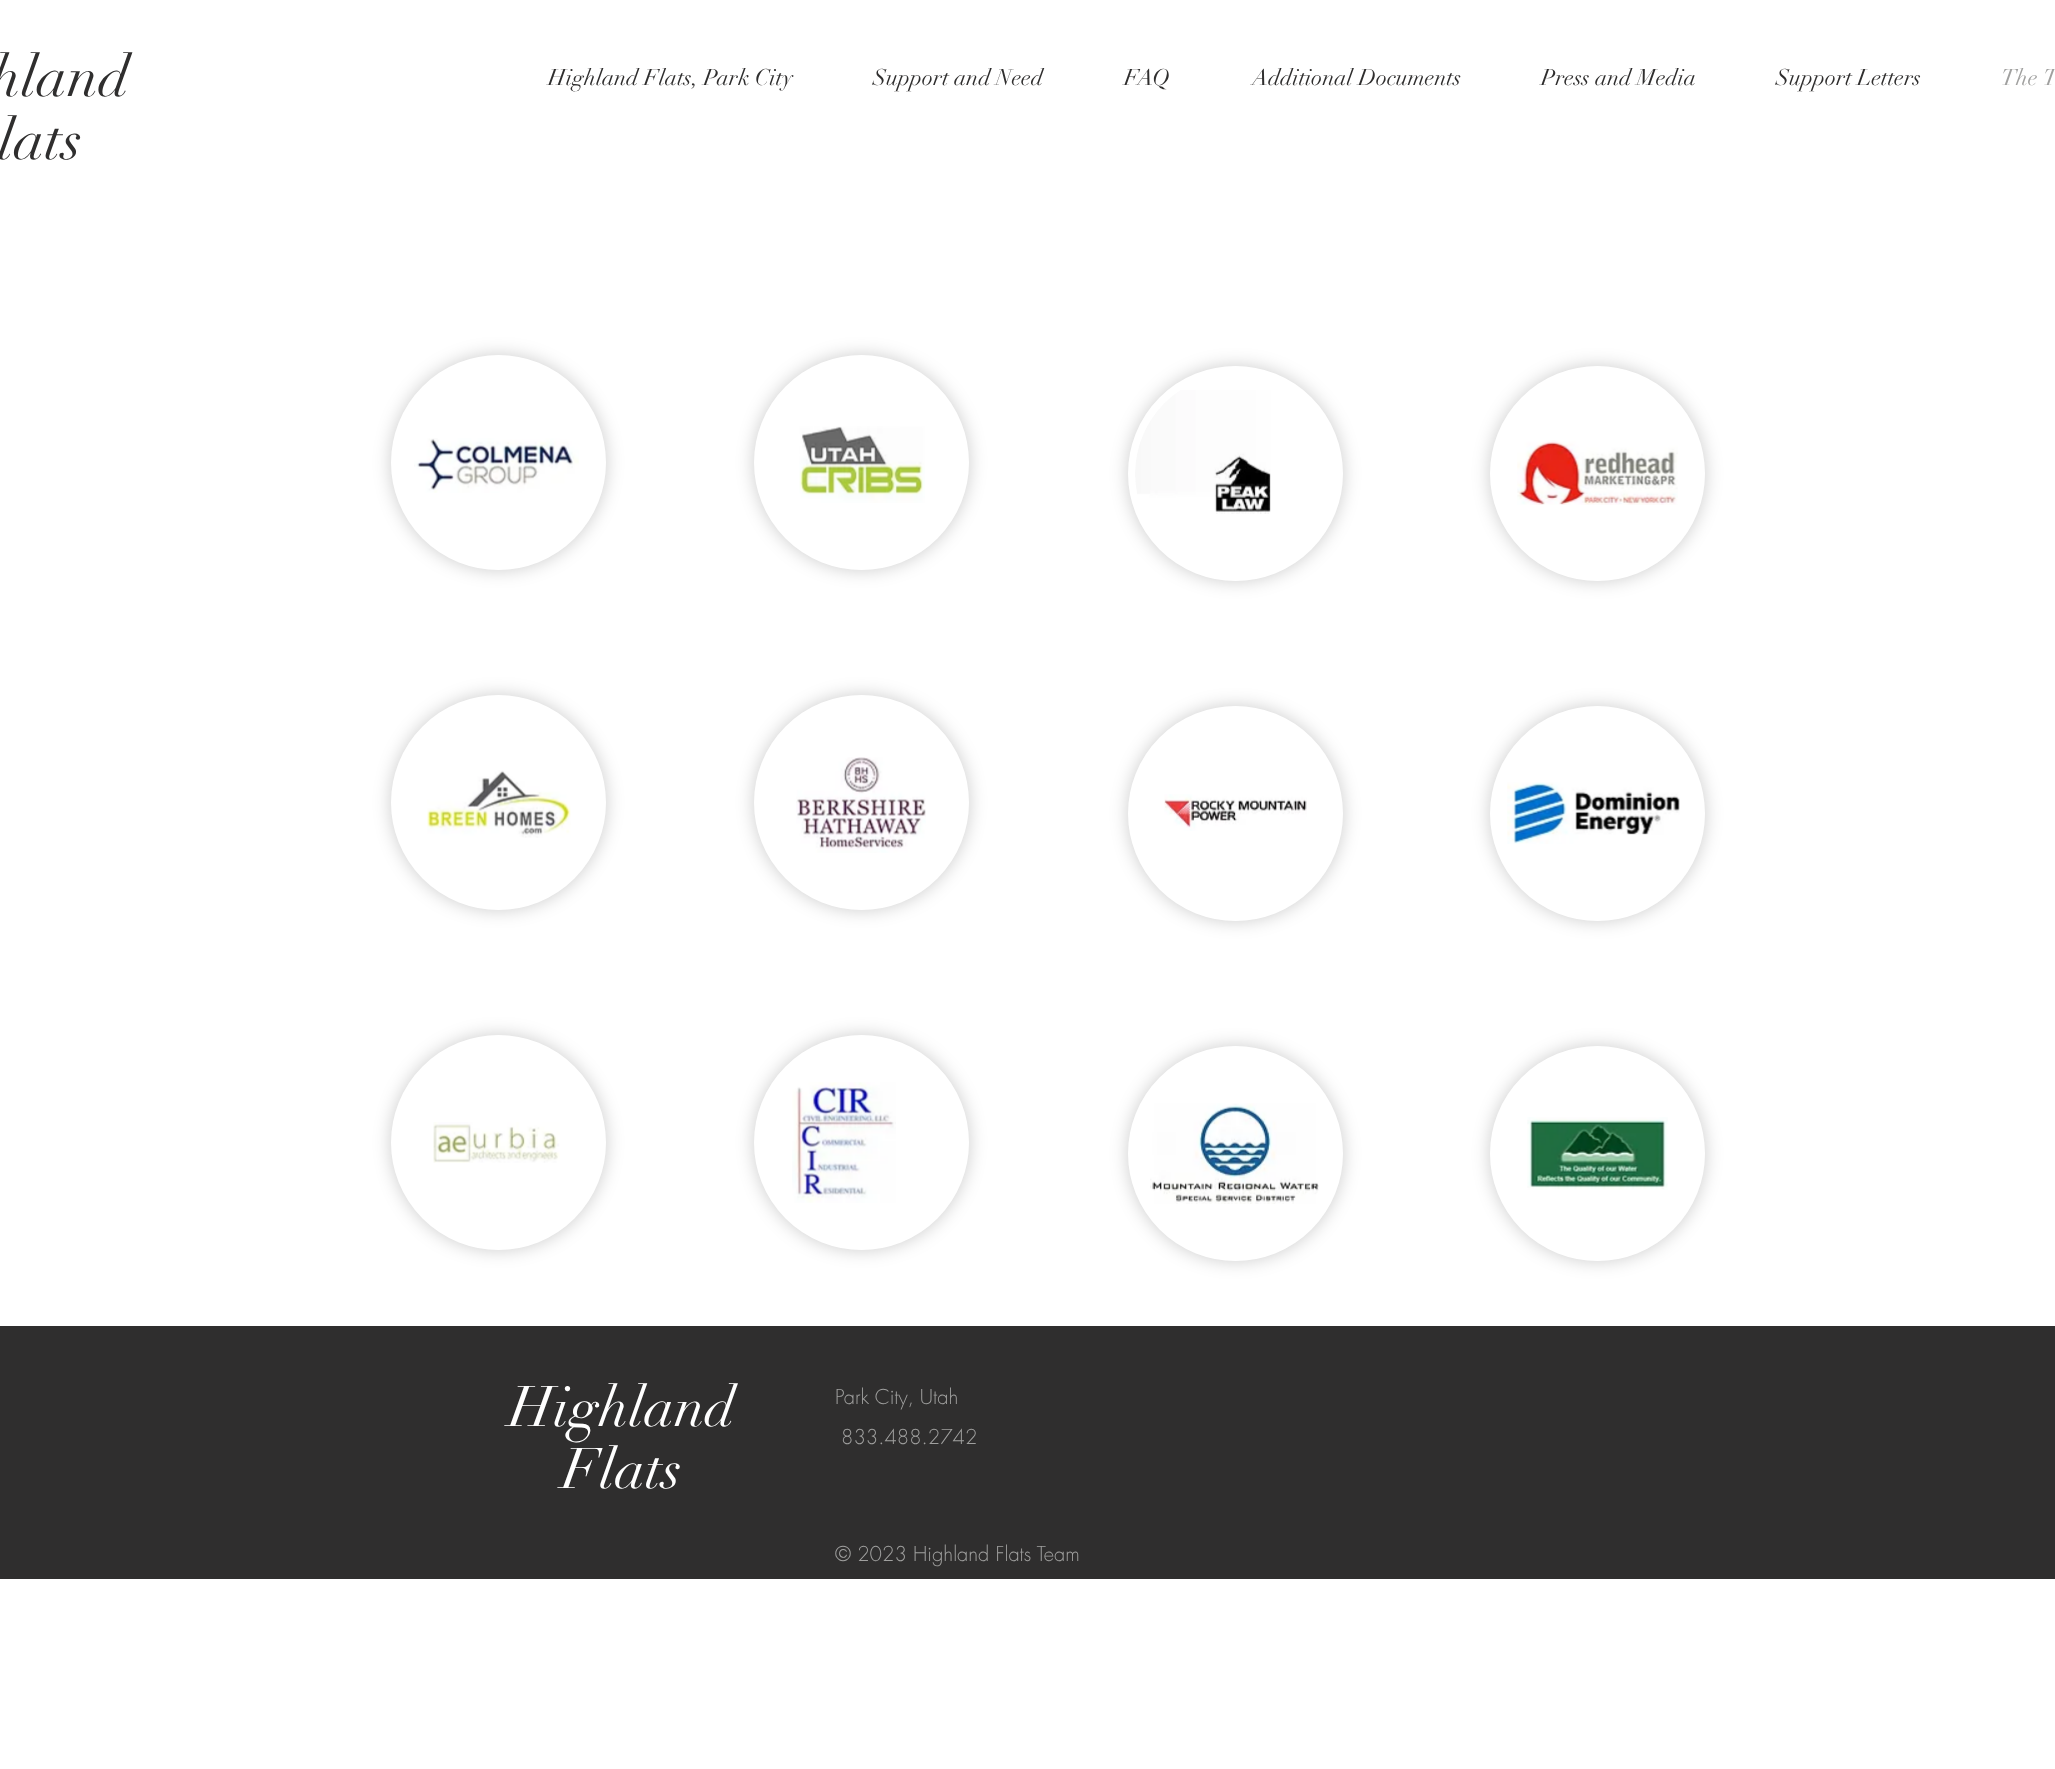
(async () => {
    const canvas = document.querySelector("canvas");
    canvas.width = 2055;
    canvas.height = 1769;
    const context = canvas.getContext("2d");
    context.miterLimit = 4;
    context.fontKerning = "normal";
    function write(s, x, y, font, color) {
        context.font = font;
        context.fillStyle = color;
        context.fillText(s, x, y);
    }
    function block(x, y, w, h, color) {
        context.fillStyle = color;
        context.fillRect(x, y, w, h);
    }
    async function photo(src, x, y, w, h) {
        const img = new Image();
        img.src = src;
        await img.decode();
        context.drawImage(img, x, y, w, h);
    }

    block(0, 0, 2055, 1769, "rgb(255, 255, 255)");
    write("hland", -10, 96, "57.5px didot", "rgb(47, 46, 46)");
    write("lats", -2, 159, "57.5px didot", "rgb(47, 46, 46)");
    write("Highland Flats, Park City", 548, 85, "22.5px didot", "rgb(47, 46, 46)");
    write("Support and Need", 873, 85, "22.5px didot", "rgb(47, 46, 46)");
    write("FAQ", 1124, 85, "22.5px didot", "rgb(47, 46, 46)");
    write("Additional Documents", 1252, 85, "22.5px didot", "rgb(47, 46, 46)");
    write("Press and Media", 1541, 85, "22.5px didot", "rgb(47, 46, 46)");
    write("Support Letters", 1776, 85, "22.5px didot", "rgb(47, 46, 46)");
    write("The T", 2001, 85, "22.5px didot", "rgb(160, 160, 159)");
    context.fillStyle = "rgba(0, 0, 0, 0.2)";
    context.filter = "blur(9px)";
    context.beginPath();
    context.roundRect(391, 355, 215, 215, 107.5);
    context.fill();
    context.filter = "none";
    context.fillStyle = "rgb(255, 255, 255)";
    context.beginPath();
    context.arc(498.5, 462.5, 103.5, 0, Math.PI * 2);
    context.fill();
    context.strokeStyle = "rgb(255, 255, 255)";
    context.lineWidth = 8;
    context.stroke();
    await photo("media/1.png", 414, 438, 165, 55);
    context.fillStyle = "rgba(0, 0, 0, 0.2)";
    context.filter = "blur(9px)";
    context.beginPath();
    context.roundRect(391, 695, 215, 215, 107.5);
    context.fill();
    context.filter = "none";
    context.fillStyle = "rgb(255, 255, 255)";
    context.beginPath();
    context.arc(498.5, 802.5, 103.5, 0, Math.PI * 2);
    context.fill();
    context.stroke();
    await photo("media/2.png", 427, 770, 144, 68);
    context.fillStyle = "rgba(0, 0, 0, 0.2)";
    context.filter = "blur(9px)";
    context.beginPath();
    context.roundRect(391, 1035, 215, 215, 107.5);
    context.fill();
    context.filter = "none";
    context.fillStyle = "rgb(255, 255, 255)";
    context.beginPath();
    context.arc(498.5, 1142.5, 103.5, 0, Math.PI * 2);
    context.fill();
    context.stroke();
    await photo("media/3.png", 433, 1122, 127, 41);
    context.fillStyle = "rgba(0, 0, 0, 0.2)";
    context.filter = "blur(9px)";
    context.beginPath();
    context.roundRect(754, 355, 215, 215, 107.5);
    context.fill();
    context.filter = "none";
    context.fillStyle = "rgb(255, 255, 255)";
    context.beginPath();
    context.arc(861.5, 462.5, 103.5, 0, Math.PI * 2);
    context.fill();
    context.stroke();
    await photo("media/4.png", 799, 426, 126, 77);
    context.fillStyle = "rgba(0, 0, 0, 0.2)";
    context.filter = "blur(9px)";
    context.beginPath();
    context.roundRect(754, 695, 215, 215, 107.5);
    context.fill();
    context.filter = "none";
    context.fillStyle = "rgb(255, 255, 255)";
    context.beginPath();
    context.arc(861.5, 802.5, 103.5, 0, Math.PI * 2);
    context.fill();
    context.stroke();
    await photo("media/5.png", 796, 757, 130, 96);
    context.fillStyle = "rgba(0, 0, 0, 0.2)";
    context.filter = "blur(9px)";
    context.beginPath();
    context.roundRect(754, 1035, 215, 215, 107.5);
    context.fill();
    context.filter = "none";
    context.fillStyle = "rgb(255, 255, 255)";
    context.beginPath();
    context.arc(861.5, 1142.5, 103.5, 0, Math.PI * 2);
    context.fill();
    context.stroke();
    await photo("media/6.png", 792, 1082, 104, 121);
    context.fillStyle = "rgba(0, 0, 0, 0.2)";
    context.filter = "blur(9px)";
    context.beginPath();
    context.roundRect(1128, 366, 215, 215, 107.5);
    context.fill();
    context.filter = "none";
    context.fillStyle = "rgb(255, 255, 255)";
    context.beginPath();
    context.arc(1235.5, 473.5, 103.5, 0, Math.PI * 2);
    context.fill();
    context.stroke();
    await photo("media/7.png", 1135, 390, 136, 124);
    context.fillStyle = "rgba(0, 0, 0, 0.2)";
    context.filter = "blur(9px)";
    context.beginPath();
    context.roundRect(1128, 706, 215, 215, 107.5);
    context.fill();
    context.filter = "none";
    context.fillStyle = "rgb(255, 255, 255)";
    context.beginPath();
    context.arc(1235.5, 813.5, 103.5, 0, Math.PI * 2);
    context.fill();
    context.stroke();
    await photo("media/8.png", 1164, 794, 143, 37);
    context.fillStyle = "rgba(0, 0, 0, 0.2)";
    context.filter = "blur(9px)";
    context.beginPath();
    context.roundRect(1128, 1046, 215, 215, 107.5);
    context.fill();
    context.filter = "none";
    context.fillStyle = "rgb(255, 255, 255)";
    context.beginPath();
    context.arc(1235.5, 1153.5, 103.5, 0, Math.PI * 2);
    context.fill();
    context.stroke();
    await photo("media/9.png", 1150, 1103, 169, 101);
    context.fillStyle = "rgba(0, 0, 0, 0.2)";
    context.filter = "blur(9px)";
    context.beginPath();
    context.roundRect(1490, 366, 215, 215, 107.5);
    context.fill();
    context.filter = "none";
    context.fillStyle = "rgb(255, 255, 255)";
    context.beginPath();
    context.arc(1597.5, 473.5, 103.5, 0, Math.PI * 2);
    context.fill();
    context.stroke();
    await photo("media/10.png", 1517, 440, 161, 65);
    context.fillStyle = "rgba(0, 0, 0, 0.2)";
    context.filter = "blur(9px)";
    context.beginPath();
    context.roundRect(1490, 706, 215, 215, 107.5);
    context.fill();
    context.filter = "none";
    context.fillStyle = "rgb(255, 255, 255)";
    context.beginPath();
    context.arc(1597.5, 813.5, 103.5, 0, Math.PI * 2);
    context.fill();
    context.stroke();
    await photo("media/11.png", 1507, 782, 173, 62);
    context.fillStyle = "rgba(0, 0, 0, 0.2)";
    context.filter = "blur(9px)";
    context.beginPath();
    context.roundRect(1490, 1046, 215, 215, 107.5);
    context.fill();
    context.filter = "none";
    context.fillStyle = "rgb(255, 255, 255)";
    context.beginPath();
    context.arc(1597.5, 1153.5, 103.5, 0, Math.PI * 2);
    context.fill();
    context.stroke();
    await photo("media/12.png", 1527, 1117, 141, 73);
    block(0, 1326, 2055, 253, "rgb(47, 46, 46)");
    write("Highland", 509, 1426, "56.25px didot", "rgb(255, 255, 255)");
    write("Flats", 562, 1488, "56.25px didot", "rgb(255, 255, 255)");
    write("Park City, Utah", 835, 1404, "300 20px futura", "rgb(160, 160, 159)");
    write("833.488.2742", 841, 1444, "300 20px futura", "rgb(160, 160, 159)");
    write("© 2023 Highland Flats Team", 835, 1561, "300 20px futura", "rgb(160, 160, 159)");
})();
